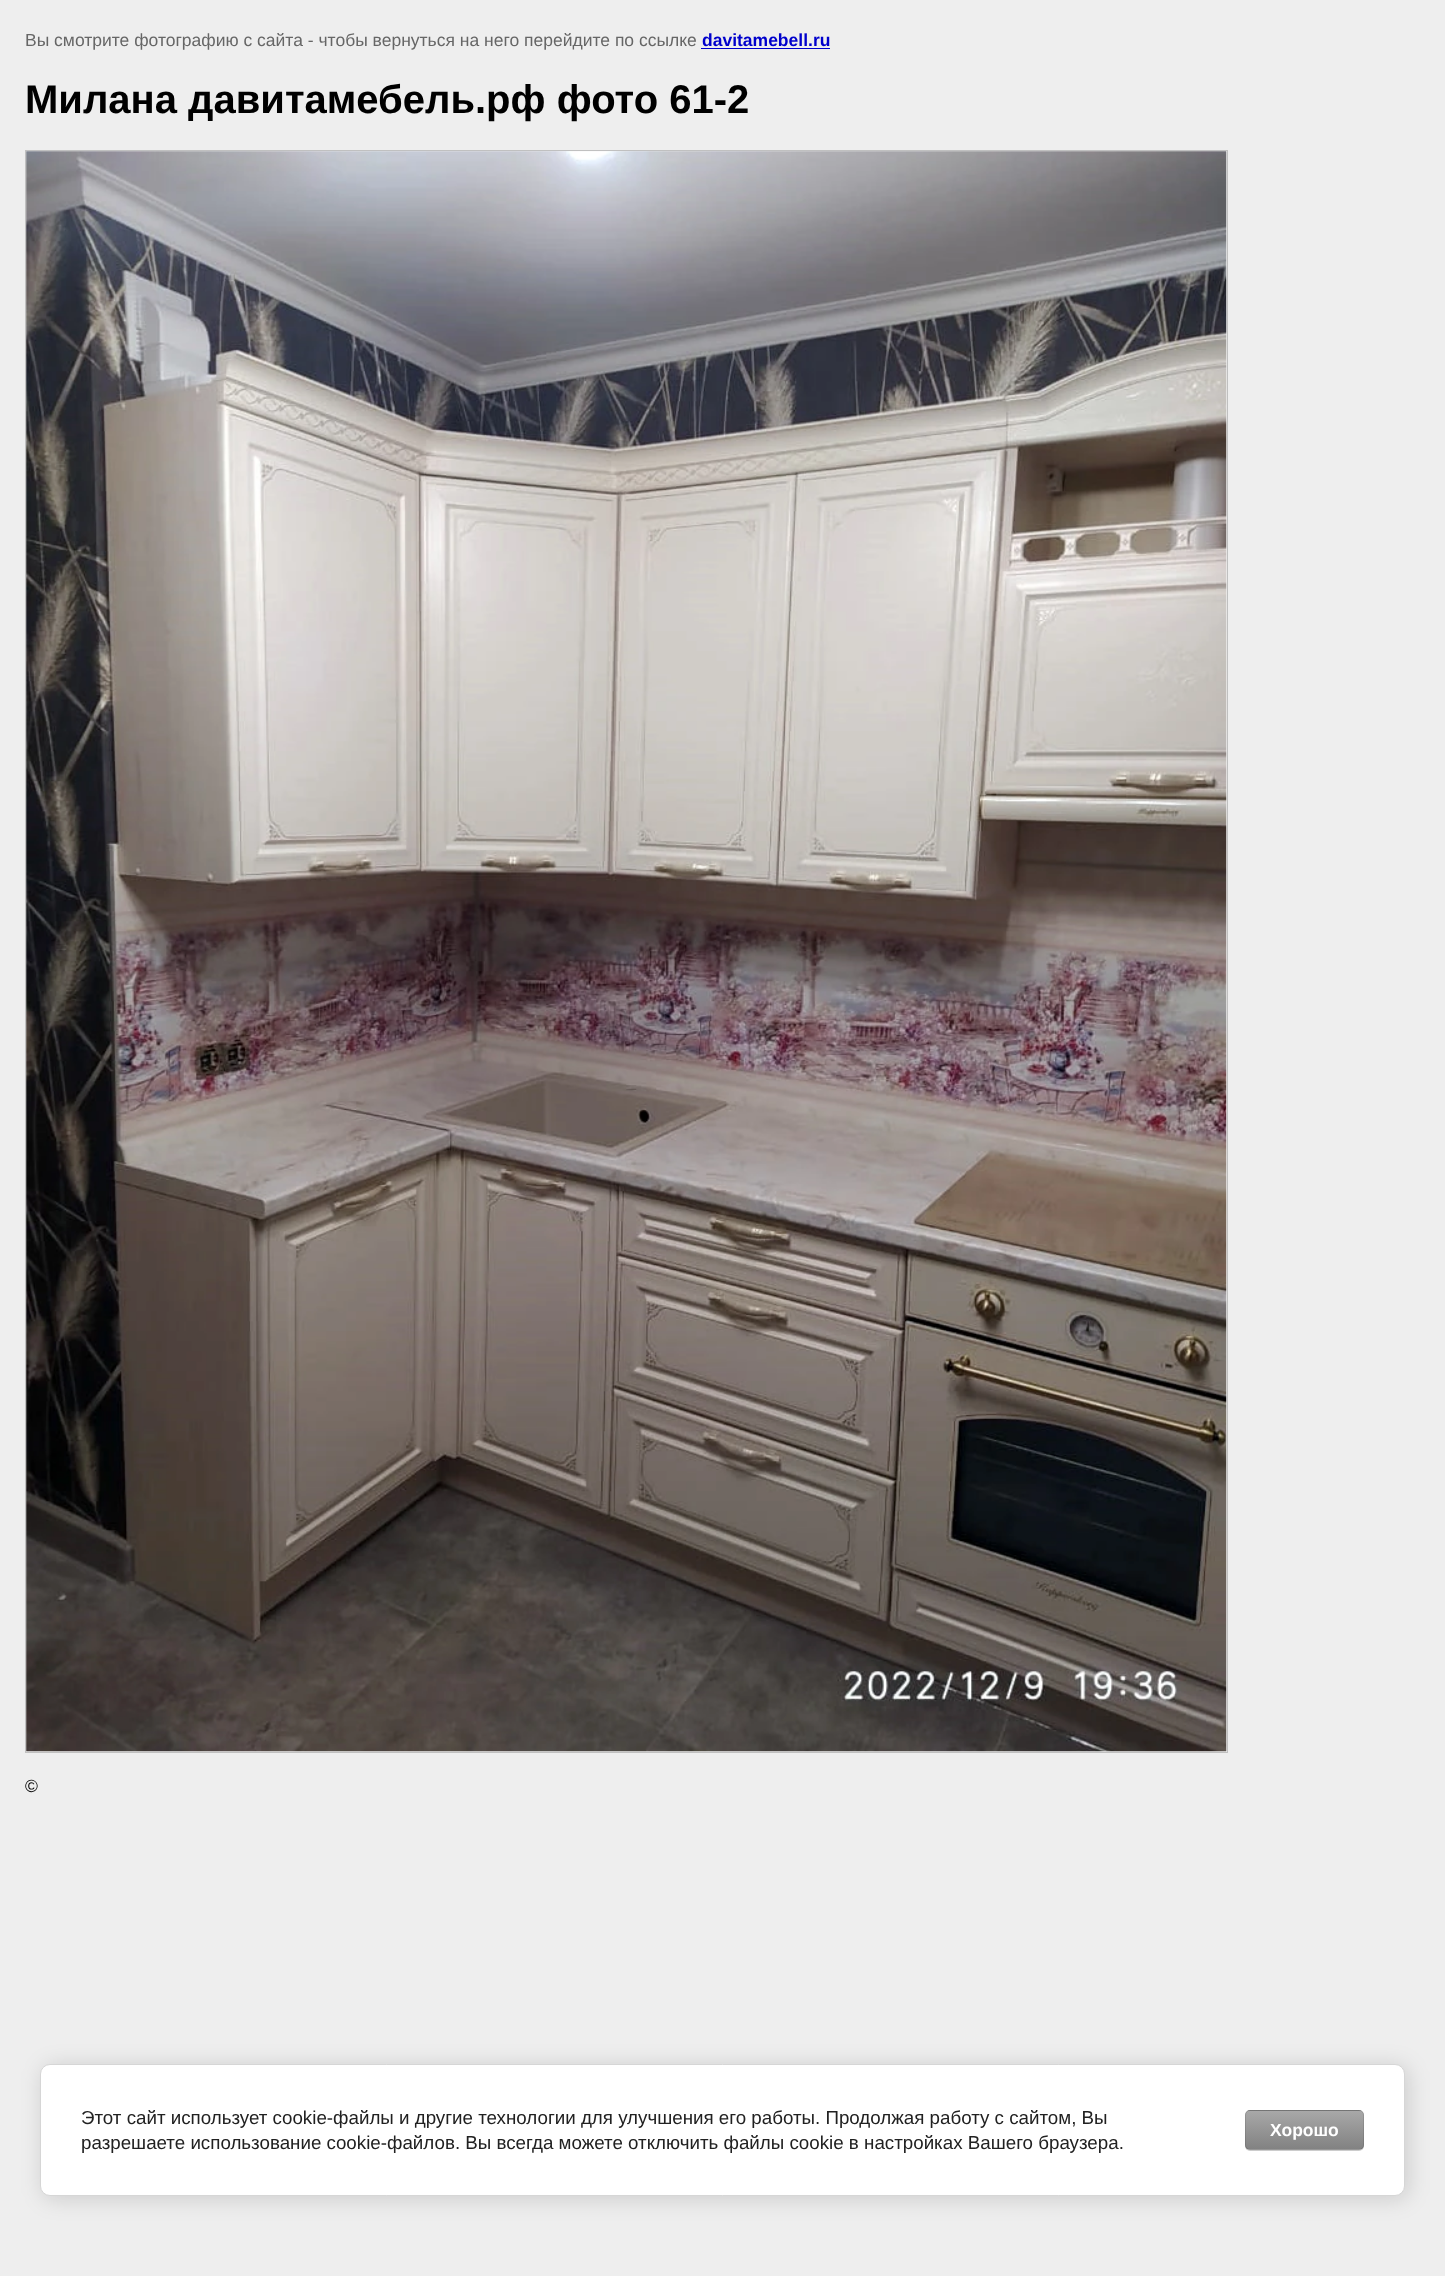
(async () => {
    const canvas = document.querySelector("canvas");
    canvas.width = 1445;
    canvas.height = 2276;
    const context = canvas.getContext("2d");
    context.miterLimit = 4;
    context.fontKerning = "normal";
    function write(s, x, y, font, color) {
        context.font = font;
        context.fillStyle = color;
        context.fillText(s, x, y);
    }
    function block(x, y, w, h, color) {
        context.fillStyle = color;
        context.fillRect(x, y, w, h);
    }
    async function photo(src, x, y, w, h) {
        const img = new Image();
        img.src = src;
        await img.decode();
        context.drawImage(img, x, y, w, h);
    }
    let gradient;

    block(0, 0, 1445, 2276, "rgb(238, 238, 238)");
    write("Вы смотрите фотографию с сайта - чтобы вернуться на него перейдите по ссылке", 25, 46, "17.5px Liberation Sans", "rgb(102, 102, 102)");
    write("davitamebell.ru", 702, 46, "bold 17.5px Liberation Sans", "rgb(0, 0, 204)");
    block(701, 48, 129, 1, "rgb(0, 0, 204)");
    write("Милана давитамебель.рф фото 61-2", 25, 113, "bold 40px Liberation Sans", "rgb(0, 0, 0)");
    context.strokeStyle = "rgb(192, 192, 192)";
    context.strokeRect(25.5, 150.5, 1202, 1602);
    await photo("media/1.png", 26, 151, 1201, 1601);
    write("©", 25, 1792, "17.5px Liberation Sans", "rgb(0, 0, 0)");
    context.fillStyle = "rgba(0, 0, 0, 0.14)";
    context.filter = "blur(11px)";
    context.beginPath();
    context.roundRect(43, 2066, 1365, 133, 10);
    context.fill();
    context.filter = "none";
    context.fillStyle = "rgb(255, 255, 255)";
    context.beginPath();
    context.roundRect(40.5, 2064.5, 1364, 131, 9.5);
    context.fill();
    context.strokeStyle = "rgb(214, 214, 214)";
    context.stroke();
    write("Этот сайт использует cookie-файлы и другие технологии для улучшения его работы. Продолжая работу с сайтом, Вы", 81, 2124, "18.75px Liberation Sans", "rgb(33, 33, 33)");
    write("разрешаете использование cookie-файлов. Вы всегда можете отключить файлы cookie в настройках Вашего браузера.", 81, 2149, "18.75px Liberation Sans", "rgb(33, 33, 33)");
    context.fillStyle = "rgba(0, 0, 0, 0.2)";
    context.filter = "blur(0.5px)";
    context.beginPath();
    context.roundRect(1245, 2111, 119, 40, 5);
    context.fill();
    context.filter = "none";
    context.save();
    context.beginPath();
    context.roundRect(1245, 2110, 119, 40, 5);
    context.clip();
    gradient = context.createLinearGradient(1304, 2074, 1304, 2111);
    gradient.addColorStop(0, "rgb(168, 168, 168)");
    gradient.addColorStop(1, "rgb(130, 130, 130)");
    context.fillStyle = gradient;
    context.fillRect(1245, 2110, 119, 1);
    gradient = context.createLinearGradient(1304, 2111, 1304, 2149);
    gradient.addColorStop(0, "rgb(168, 168, 168)");
    gradient.addColorStop(1, "rgb(130, 130, 130)");
    context.fillStyle = gradient;
    context.fillRect(1245, 2111, 119, 38);
    gradient = context.createLinearGradient(1304, 2149, 1304, 2186);
    gradient.addColorStop(0, "rgb(168, 168, 168)");
    gradient.addColorStop(1, "rgb(130, 130, 130)");
    context.fillStyle = gradient;
    context.fillRect(1245, 2149, 119, 1);
    context.restore();
    context.beginPath();
    context.roundRect(1245.5, 2110.5, 118, 39, 4.5);
    context.strokeStyle = "rgba(0, 0, 0, 0.1)";
    context.stroke();
    write("Хорошо", 1270, 2136, "bold 17.5px Liberation Sans", "rgb(255, 255, 255)");
})();
